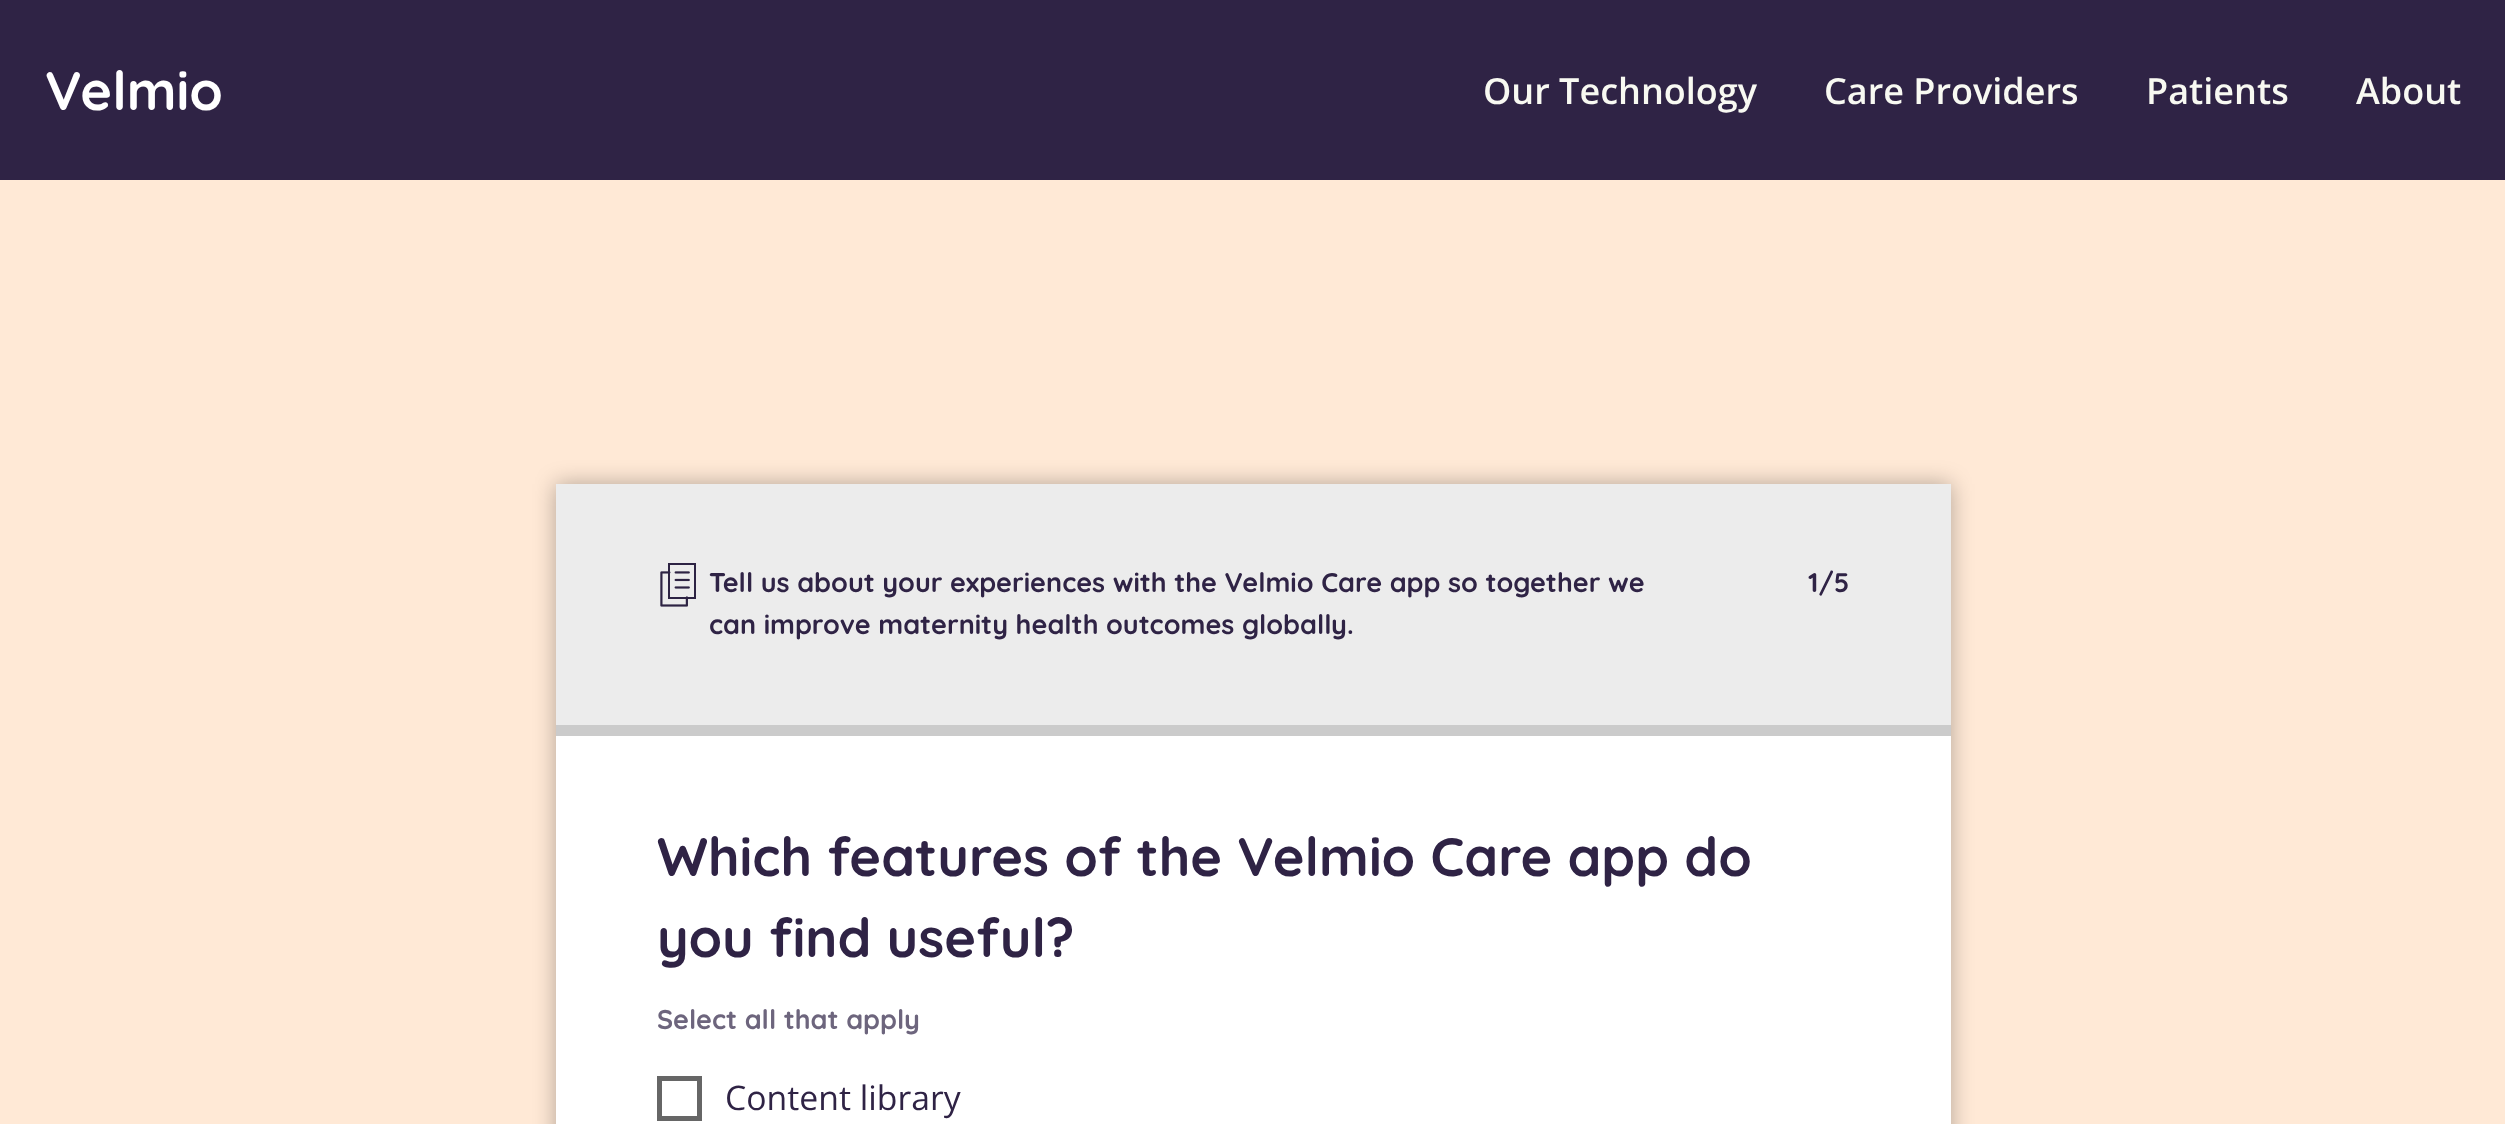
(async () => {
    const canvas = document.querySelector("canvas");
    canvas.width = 2505;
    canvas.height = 1124;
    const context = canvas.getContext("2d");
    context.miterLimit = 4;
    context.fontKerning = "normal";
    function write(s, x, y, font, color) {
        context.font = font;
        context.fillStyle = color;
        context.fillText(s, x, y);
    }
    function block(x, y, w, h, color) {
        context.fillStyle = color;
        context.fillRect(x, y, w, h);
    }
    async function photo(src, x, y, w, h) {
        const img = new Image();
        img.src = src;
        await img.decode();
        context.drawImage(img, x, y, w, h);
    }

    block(0, 0, 2505, 1124, "rgb(47, 35, 69)");
    write("Velmio", 45, 110, "300 54px Quicksand", "rgb(255, 255, 255)");
    write("Our Technology", 1483, 104, "600 36px Open Sans", "rgb(248, 249, 242)");
    write("Care Providers", 1824, 104, "600 36px Open Sans", "rgb(248, 249, 242)");
    write("Patients", 2146, 104, "600 36px Open Sans", "rgb(248, 249, 242)");
    write("About", 2356, 104, "600 36px Open Sans", "rgb(248, 249, 242)");
    block(0, 180, 2505, 944, "rgb(255, 233, 214)");
    context.fillStyle = "rgba(0, 0, 0, 0.3)";
    context.filter = "blur(11px)";
    context.beginPath();
    context.rect(556, 484, 1395, 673);
    context.fill();
    context.filter = "none";
    block(556, 736, 1395, 388, "rgb(255, 255, 255)");
    block(556, 484, 1395, 241, "rgb(236, 236, 236)");
    await photo("media/1.png", 660, 563, 36, 44);
    write("Tell us about your experiences with the Velmio Care app so together we", 709, 592, "300 27px Quicksand", "rgb(47, 35, 69)");
    write("can improve maternity health outcomes globally.", 709, 634, "300 27px Quicksand", "rgb(47, 35, 69)");
    write("1/5", 1808, 592, "300 27px Quicksand", "rgb(47, 35, 69)");
    block(556, 725, 1395, 11, "rgb(203, 203, 203)");
    write("Which features of the Velmio Care app do", 657, 876, "300 54px Quicksand", "rgb(47, 35, 69)");
    write("you find useful?", 657, 957, "300 54px Quicksand", "rgb(47, 35, 69)");
    write("Select all that apply", 657, 1029, "300 27px Quicksand", "rgb(109, 101, 125)");
    context.strokeStyle = "rgb(102, 102, 102)";
    context.lineWidth = 5;
    context.strokeRect(659.5, 1078.5, 40, 40);
    write("Content library", 725, 1110, "33.75px Open Sans", "rgb(47, 35, 69)");
})();
